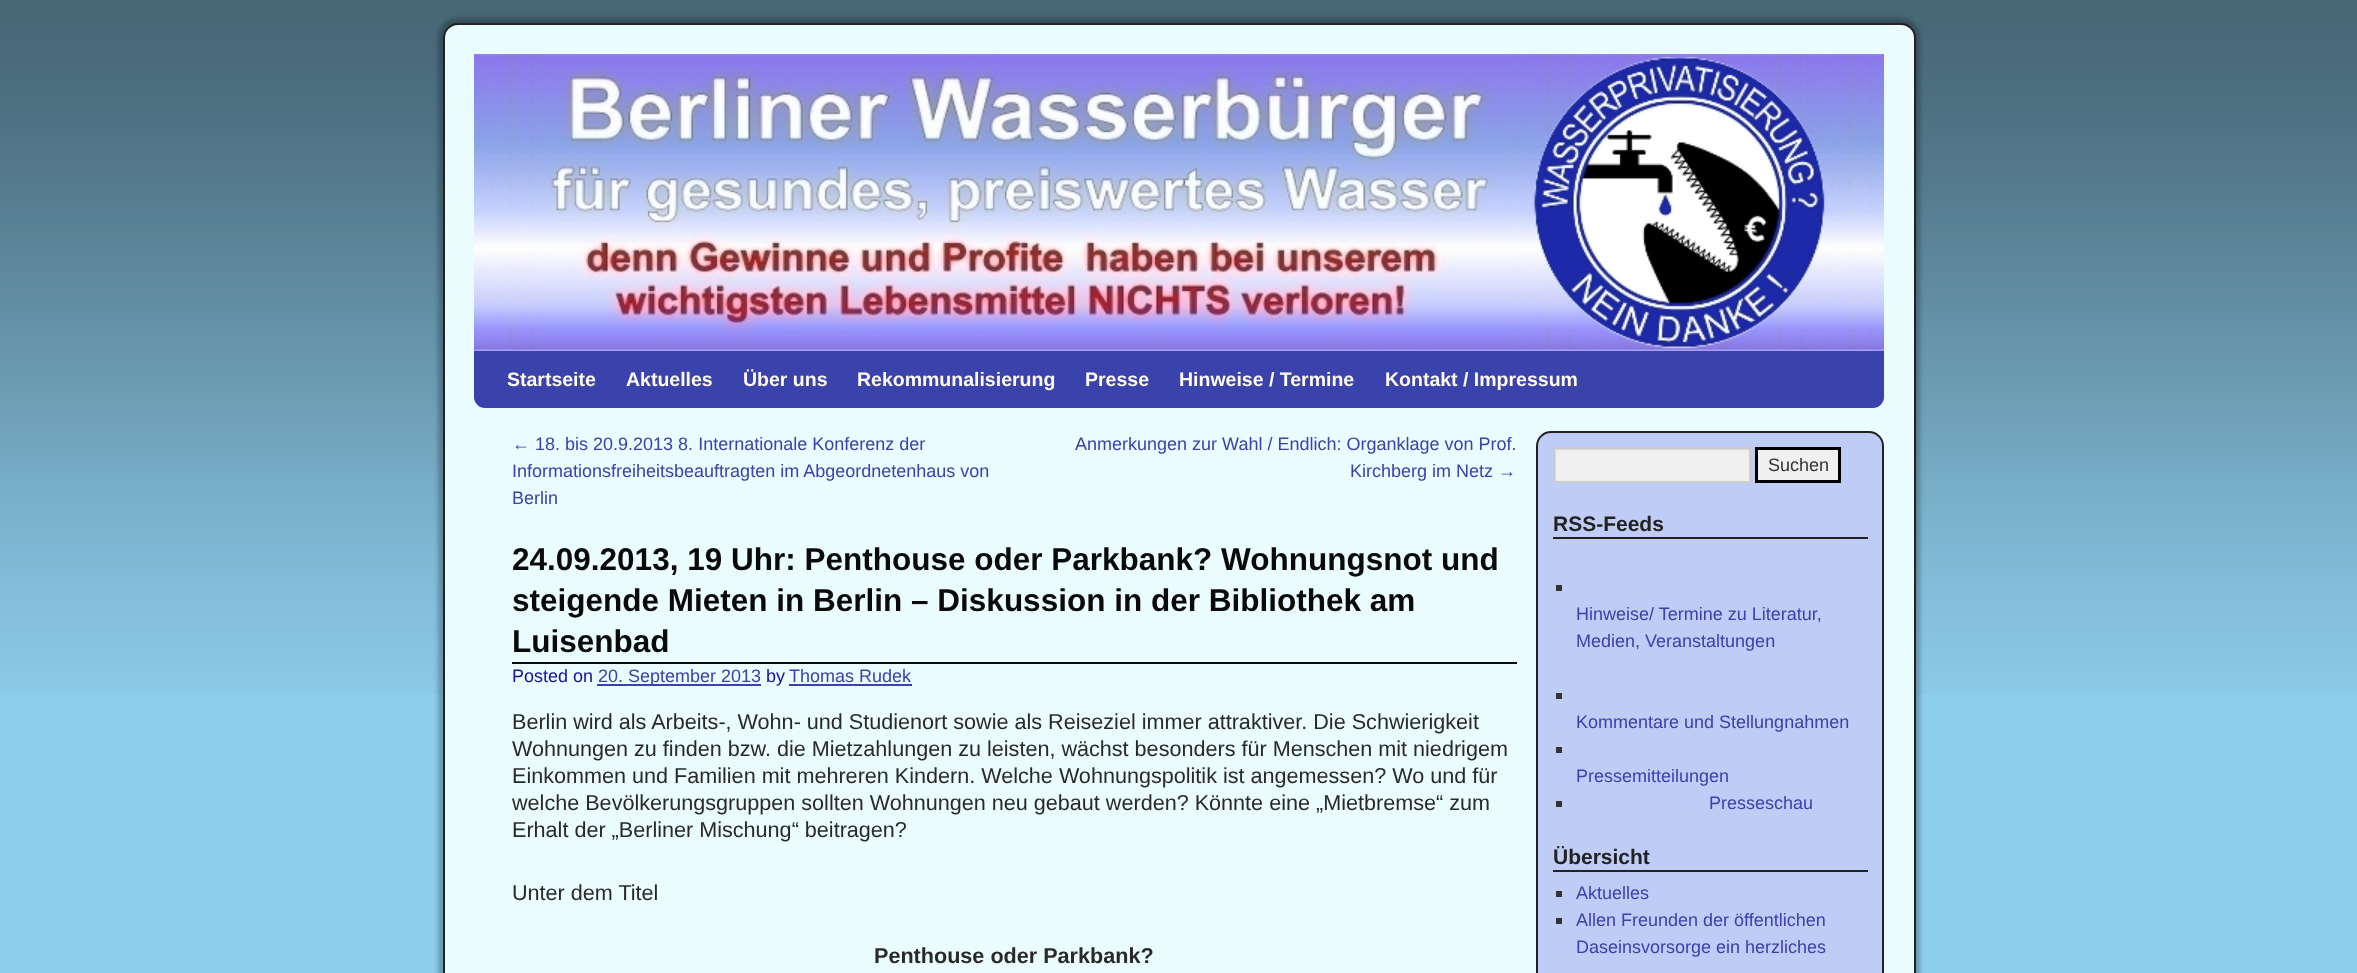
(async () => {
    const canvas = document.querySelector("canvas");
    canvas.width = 2357;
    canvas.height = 973;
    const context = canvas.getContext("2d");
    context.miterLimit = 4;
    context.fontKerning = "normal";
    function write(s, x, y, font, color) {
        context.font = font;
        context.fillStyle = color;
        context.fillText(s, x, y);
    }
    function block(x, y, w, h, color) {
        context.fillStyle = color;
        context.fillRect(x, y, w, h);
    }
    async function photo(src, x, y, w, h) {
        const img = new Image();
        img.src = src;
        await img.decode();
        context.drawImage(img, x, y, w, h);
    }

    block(0, 0, 2357, 973, "rgb(142, 206, 237)");
    await photo("media/1.png", 0, 0, 2357, 695);
    context.fillStyle = "rgba(0, 0, 0, 0.25)";
    context.filter = "blur(2px)";
    context.beginPath();
    context.roundRect(438, 18, 1482, 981, 20);
    context.fill();
    context.filter = "none";
    context.fillStyle = "rgb(234, 252, 254)";
    context.beginPath();
    context.roundRect(444, 24, 1471, 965, 14);
    context.fill();
    context.strokeStyle = "rgb(34, 34, 34)";
    context.lineWidth = 2;
    context.stroke();
    await photo("media/2.png", 474, 54, 1410, 297);
    context.fillStyle = "rgb(58, 66, 171)";
    context.beginPath();
    context.roundRect(474, 351, 1410, 57, [0, 0, 11, 11]);
    context.fill();
    write("Startseite", 507, 386, "bold 19.5px Liberation Sans", "rgb(255, 250, 239)");
    write("Aktuelles", 626, 386, "bold 19.5px Liberation Sans", "rgb(255, 250, 239)");
    write("Über uns", 743, 386, "bold 19.5px Liberation Sans", "rgb(255, 250, 239)");
    write("Rekommunalisierung", 857, 386, "bold 19.5px Liberation Sans", "rgb(255, 250, 239)");
    write("Presse", 1085, 386, "bold 19.5px Liberation Sans", "rgb(255, 250, 239)");
    write("Hinweise / Termine", 1179, 386, "bold 19.5px Liberation Sans", "rgb(255, 250, 239)");
    write("Kontakt / Impressum", 1385, 386, "bold 19.5px Liberation Sans", "rgb(255, 250, 239)");
    write("← 18. bis 20.9.2013 8. Internationale Konferenz der", 512, 450, "18px Liberation Sans", "rgb(58, 66, 171)");
    write("Informationsfreiheitsbeauftragten im Abgeordnetenhaus von", 512, 477, "18px Liberation Sans", "rgb(58, 66, 171)");
    write("Berlin", 512, 504, "18px Liberation Sans", "rgb(58, 66, 171)");
    write("Anmerkungen zur Wahl / Endlich: Organklage von Prof.", 1075, 450, "18px Liberation Sans", "rgb(58, 66, 171)");
    write("Kirchberg im Netz →", 1350, 477, "18px Liberation Sans", "rgb(58, 66, 171)");
    block(512, 662, 1005, 2, "rgb(10, 10, 10)");
    write("24.09.2013, 19 Uhr: Penthouse oder Parkbank? Wohnungsnot und", 512, 570, "bold 31.5px Liberation Sans", "rgb(10, 10, 10)");
    write("steigende Mieten in Berlin – Diskussion in der Bibliothek am", 512, 611, "bold 31.5px Liberation Sans", "rgb(10, 10, 10)");
    write("Luisenbad", 512, 652, "bold 31.5px Liberation Sans", "rgb(10, 10, 10)");
    write("Posted on", 512, 682, "18px Liberation Sans", "rgb(25, 16, 156)");
    block(597, 684, 164, 2, "rgb(58, 66, 171)");
    write("20. September 2013", 598, 682, "18px Liberation Sans", "rgb(58, 66, 171)");
    write("by", 766, 682, "18px Liberation Sans", "rgb(25, 16, 156)");
    write("Thomas Rudek", 789, 682, "18px Liberation Sans", "rgb(58, 66, 171)");
    block(789, 684, 123, 2, "rgb(58, 66, 171)");
    write("Berlin wird als Arbeits-, Wohn- und Studienort sowie als Reiseziel immer attraktiver. Die Schwierigkeit", 512, 729, "21.6px Liberation Sans", "rgb(41, 41, 41)");
    write("Wohnungen zu finden bzw. die Mietzahlungen zu leisten, wächst besonders für Menschen mit niedrigem", 512, 756, "21.6px Liberation Sans", "rgb(41, 41, 41)");
    write("Einkommen und Familien mit mehreren Kindern. Welche Wohnungspolitik ist angemessen? Wo und für", 512, 783, "21.6px Liberation Sans", "rgb(41, 41, 41)");
    write("welche Bevölkerungsgruppen sollten Wohnungen neu gebaut werden? Könnte eine „Mietbremse“ zum", 512, 810, "21.6px Liberation Sans", "rgb(41, 41, 41)");
    write("Erhalt der „Berliner Mischung“ beitragen?", 512, 837, "21.6px Liberation Sans", "rgb(41, 41, 41)");
    write("Unter dem Titel", 512, 900, "21.6px Liberation Sans", "rgb(41, 41, 41)");
    write("Penthouse oder Parkbank?", 874, 963, "bold 21.6px Liberation Sans", "rgb(41, 41, 41)");
    context.fillStyle = "rgb(191, 204, 245)";
    context.beginPath();
    context.roundRect(1537, 432, 346, 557, 14);
    context.fill();
    context.stroke();
    block(1556, 450, 193, 31, "rgb(240, 240, 240)");
    context.save();
    context.beginPath();
    context.rect(1554, 449, 195, 33);
    context.clip();
    context.fillStyle = "rgb(216, 216, 216)";
    context.beginPath();
    context.moveTo(1552, 432);
    context.lineTo(1869, 432);
    context.bezierCurveTo(1877, 432, 1883, 438, 1883, 446);
    context.lineTo(1883, 630);
    context.lineTo(1538, 630);
    context.lineTo(1538, 446);
    context.bezierCurveTo(1538, 438, 1544, 432, 1552, 432);
    context.closePath();
    context.moveTo(1556, 450);
    context.lineTo(1556, 483);
    context.lineTo(1750, 483);
    context.lineTo(1750, 450);
    context.closePath();
    context.fill("evenodd");
    context.restore();
    context.strokeStyle = "rgb(204, 204, 204)";
    context.strokeRect(1554, 448, 196, 34);
    context.beginPath();
    context.rect(1756.5, 448.5, 83, 33);
    context.fill();
    context.strokeStyle = "rgb(0, 0, 0)";
    context.lineWidth = 3;
    context.stroke();
    write("Suchen", 1768, 471, "18px Liberation Sans", "rgb(51, 51, 51)");
    block(1553, 537, 315, 2, "rgb(34, 34, 34)");
    write("RSS-Feeds", 1553, 531, "bold 21px Liberation Sans", "rgb(34, 34, 34)");
    block(1556, 585, 6, 6, "rgb(51, 51, 51)");
    write("Hinweise/ Termine zu Literatur,", 1576, 620, "18px Liberation Sans", "rgb(58, 66, 171)");
    write("Medien, Veranstaltungen", 1576, 647, "18px Liberation Sans", "rgb(58, 66, 171)");
    block(1556, 693, 6, 6, "rgb(51, 51, 51)");
    write("Kommentare und Stellungnahmen", 1576, 728, "18px Liberation Sans", "rgb(58, 66, 171)");
    block(1556, 747, 6, 6, "rgb(51, 51, 51)");
    write("Pressemitteilungen", 1576, 782, "18px Liberation Sans", "rgb(58, 66, 171)");
    block(1556, 801, 6, 6, "rgb(51, 51, 51)");
    write("Presseschau", 1709, 809, "18px Liberation Sans", "rgb(58, 66, 171)");
    block(1553, 870, 315, 2, "rgb(34, 34, 34)");
    write("Übersicht", 1553, 864, "bold 21px Liberation Sans", "rgb(34, 34, 34)");
    block(1556, 891, 6, 6, "rgb(51, 51, 51)");
    write("Aktuelles", 1576, 899, "18px Liberation Sans", "rgb(58, 66, 171)");
    block(1556, 918, 6, 6, "rgb(51, 51, 51)");
    write("Allen Freunden der öffentlichen", 1576, 926, "18px Liberation Sans", "rgb(58, 66, 171)");
    write("Daseinsvorsorge ein herzliches", 1576, 953, "18px Liberation Sans", "rgb(58, 66, 171)");
})();
